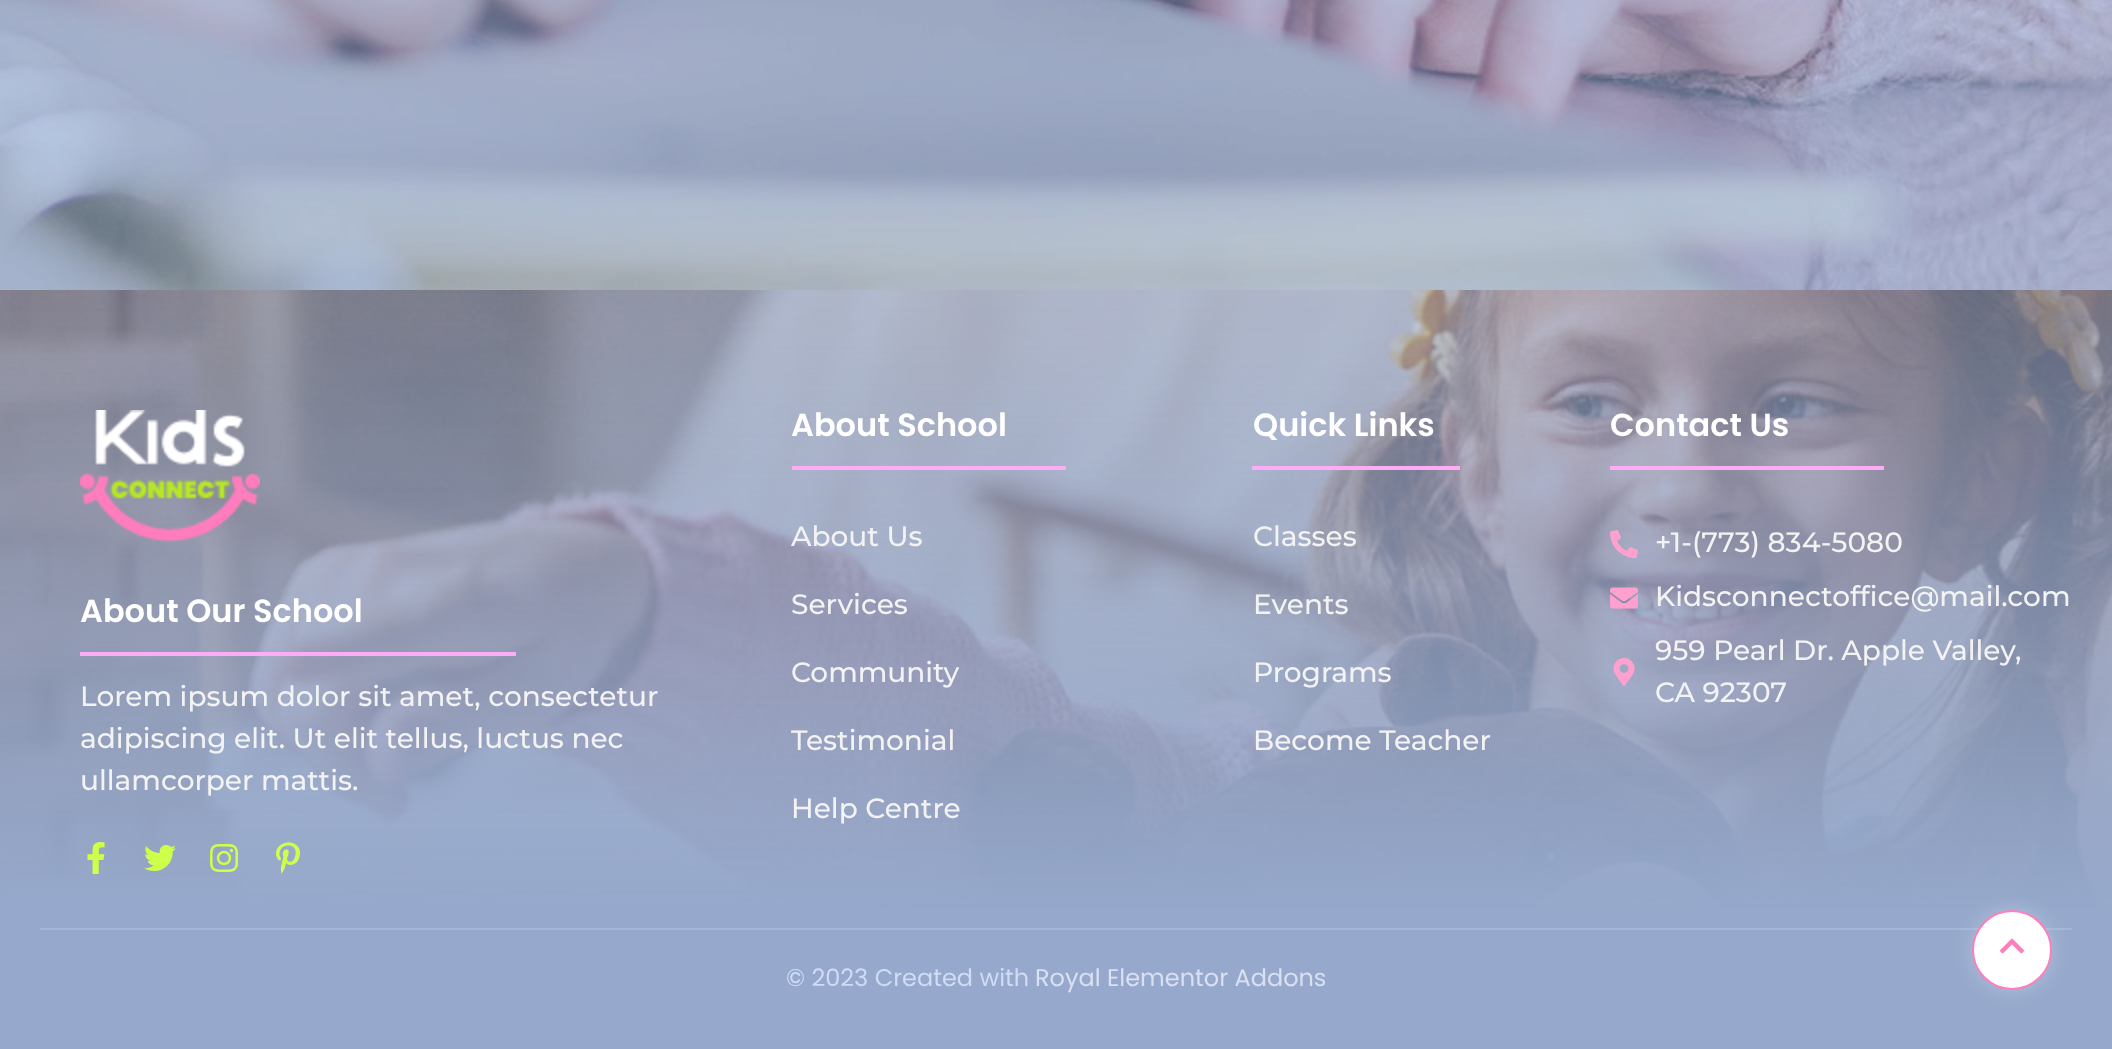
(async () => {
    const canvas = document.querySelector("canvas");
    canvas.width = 2112;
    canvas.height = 1049;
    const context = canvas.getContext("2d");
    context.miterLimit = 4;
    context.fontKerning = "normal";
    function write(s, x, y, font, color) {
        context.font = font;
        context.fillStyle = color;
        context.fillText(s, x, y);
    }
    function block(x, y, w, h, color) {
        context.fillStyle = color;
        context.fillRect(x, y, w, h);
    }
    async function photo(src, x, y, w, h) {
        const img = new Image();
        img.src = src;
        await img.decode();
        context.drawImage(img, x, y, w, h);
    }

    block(0, 0, 2112, 1049, "rgb(255, 255, 255)");
    await photo("media/1.png", 0, 0, 2112, 290);
    await photo("media/2.png", 0, 290, 2112, 759);
    await photo("media/3.png", 80, 410, 180, 132);
    write("About Our School", 80, 622, "600 32px Poppins", "rgb(255, 255, 255)");
    block(80, 652, 436, 4, "rgb(255, 172, 247)");
    write("Lorem ipsum dolor sit amet, consectetur", 80, 706, "500 28px Montserrat", "rgb(243, 243, 243)");
    write("adipiscing elit. Ut elit tellus, luctus nec", 80, 748, "500 28px Montserrat", "rgb(243, 243, 243)");
    write("ullamcorper mattis.", 80, 790, "500 28px Montserrat", "rgb(243, 243, 243)");
    await photo("media/4.png", 87, 842, 18, 32);
    await photo("media/5.png", 144, 845, 32, 26);
    await photo("media/6.png", 210, 844, 28, 28);
    await photo("media/7.png", 276, 842, 24, 32);
    write("About School", 791, 436, "600 32px Poppins", "rgb(255, 255, 255)");
    block(792, 466, 274, 4, "rgb(255, 172, 247)");
    write("About Us", 791, 546, "500 28px Montserrat", "rgb(243, 243, 243)");
    write("Services", 791, 614, "500 28px Montserrat", "rgb(243, 243, 243)");
    write("Community", 791, 682, "500 28px Montserrat", "rgb(243, 243, 243)");
    write("Testimonial", 791, 750, "500 28px Montserrat", "rgb(243, 243, 243)");
    write("Help Centre", 791, 818, "500 28px Montserrat", "rgb(243, 243, 243)");
    write("Quick Links", 1253, 436, "600 32px Poppins", "rgb(255, 255, 255)");
    block(1252, 466, 208, 4, "rgb(255, 172, 247)");
    write("Classes", 1253, 546, "500 28px Montserrat", "rgb(243, 243, 243)");
    write("Events", 1253, 614, "500 28px Montserrat", "rgb(243, 243, 243)");
    write("Programs", 1253, 682, "500 28px Montserrat", "rgb(243, 243, 243)");
    write("Become Teacher", 1253, 750, "500 28px Montserrat", "rgb(243, 243, 243)");
    write("Contact Us", 1610, 436, "600 32px Poppins", "rgb(255, 255, 255)");
    block(1610, 466, 274, 4, "rgb(255, 172, 247)");
    await photo("media/8.png", 1610, 530, 28, 28);
    write("+1-(773) 834-5080", 1655, 552, "500 28px Montserrat", "rgb(243, 243, 243)");
    await photo("media/9.png", 1610, 587, 28, 22);
    write("Kidsconnectoffice@mail.com", 1655, 606, "500 28px Montserrat", "rgb(243, 243, 243)");
    await photo("media/10.png", 1613, 658, 22, 28);
    write("959 Pearl Dr. Apple Valley,", 1655, 660, "500 28px Montserrat", "rgb(243, 243, 243)");
    write("CA 92307", 1655, 702, "500 28px Montserrat", "rgb(243, 243, 243)");
    block(40, 928, 2032, 2, "rgb(163, 181, 216)");
    write("© 2023 Created with", 786, 986, "24px Poppins", "rgb(208, 220, 245)");
    write("Royal Elementor Addons", 1035, 986, "24px Poppins", "rgb(216, 224, 242)");
    context.fillStyle = "rgba(240, 249, 255, 0.29)";
    context.filter = "blur(10px)";
    context.beginPath();
    context.roundRect(1972, 910, 80, 80, 40);
    context.fill();
    context.filter = "none";
    context.fillStyle = "rgb(255, 255, 255)";
    context.beginPath();
    context.arc(2012, 950, 39, 0, Math.PI * 2);
    context.fill();
    context.strokeStyle = "rgb(255, 125, 188)";
    context.lineWidth = 2;
    context.stroke();
    await photo("media/11.png", 2000, 938, 24, 16);
})();
